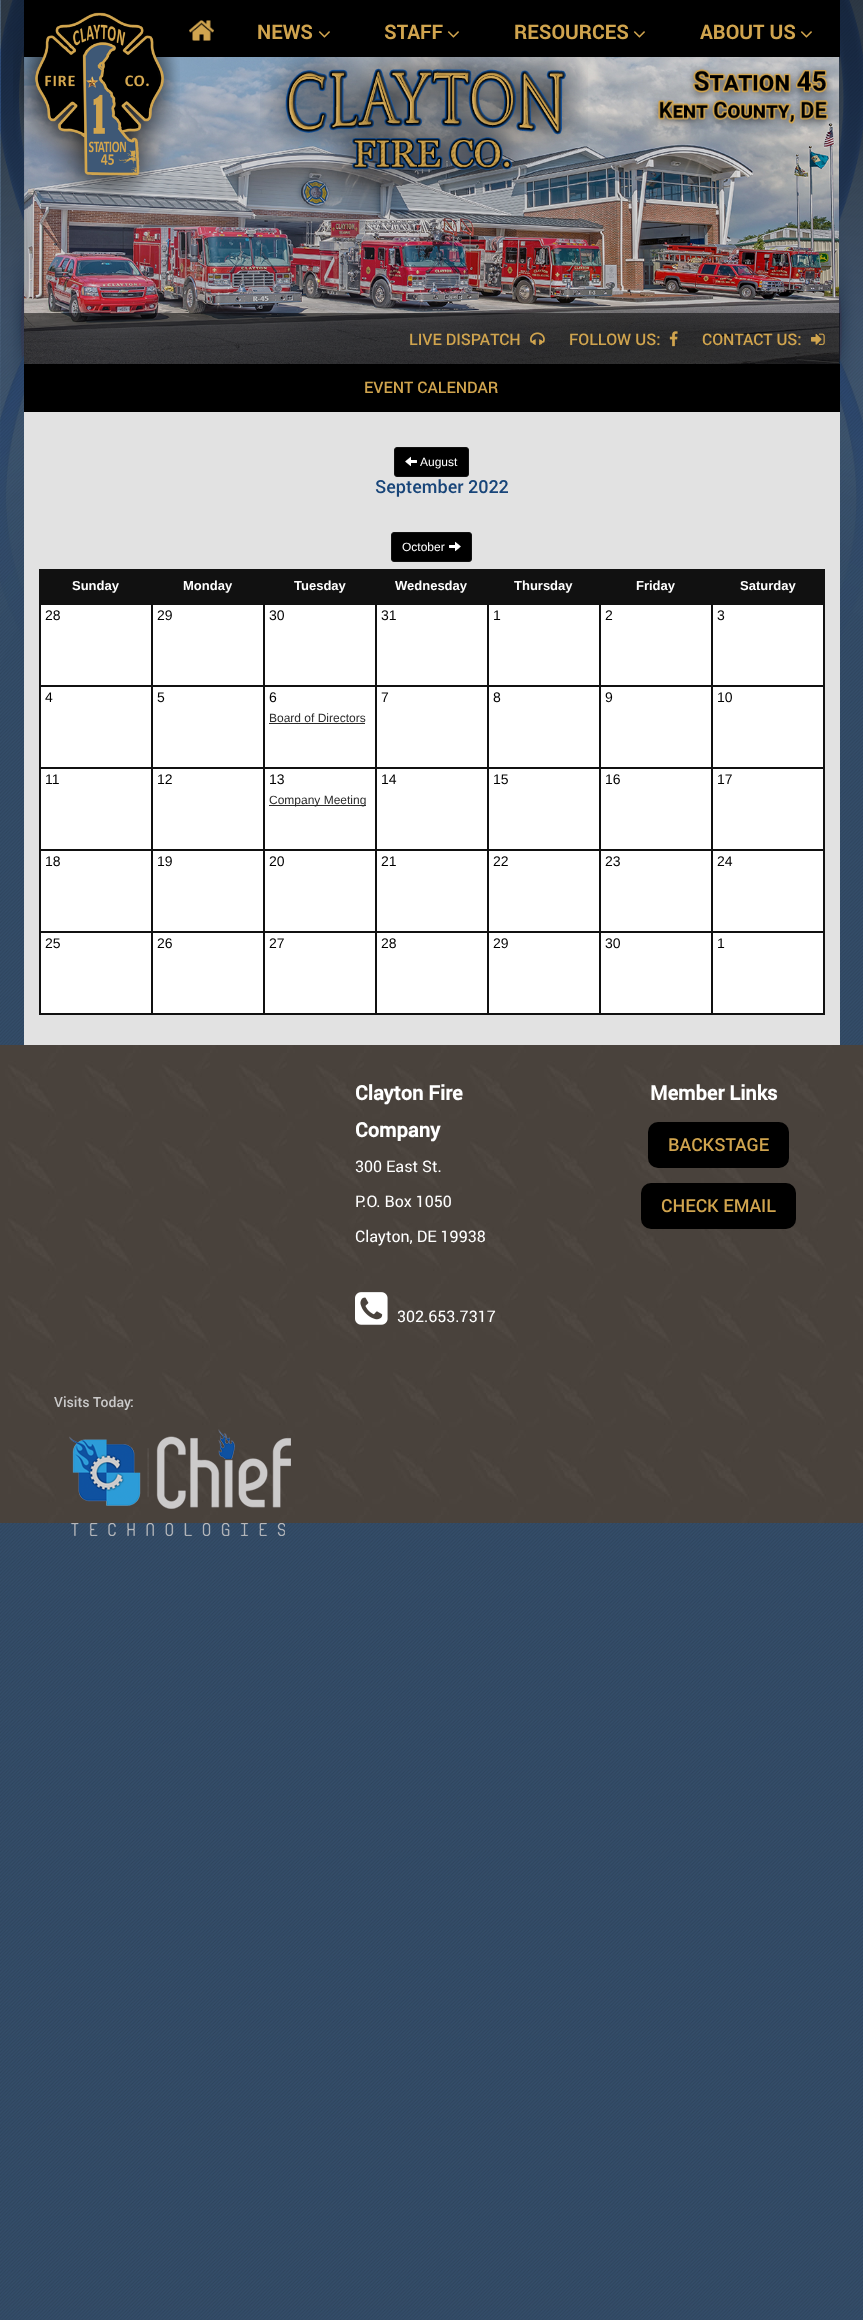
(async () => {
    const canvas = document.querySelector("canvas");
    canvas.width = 863;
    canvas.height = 2320;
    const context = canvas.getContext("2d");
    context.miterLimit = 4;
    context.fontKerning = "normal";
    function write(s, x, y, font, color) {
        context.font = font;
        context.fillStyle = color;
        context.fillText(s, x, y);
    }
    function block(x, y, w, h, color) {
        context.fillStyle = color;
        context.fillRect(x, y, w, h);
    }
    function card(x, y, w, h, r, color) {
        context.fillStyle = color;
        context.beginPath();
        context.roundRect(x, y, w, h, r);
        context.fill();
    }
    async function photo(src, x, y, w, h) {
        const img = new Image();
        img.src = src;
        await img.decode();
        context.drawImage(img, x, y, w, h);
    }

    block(0, 0, 863, 2320, "rgb(255, 255, 255)");
    await photo("media/1.png", 0, 0, 863, 2320);
    block(24, 0, 816, 57, "rgb(0, 0, 0)");
    await photo("media/5.png", 24, 57, 815, 307);
    await photo("media/2.png", 13, 12, 167, 192);
    await photo("media/3.png", 189, 20, 25, 21);
    write("NEWS", 257, 39, "bold 20px 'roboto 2'", "rgb(208, 164, 78)");
    await photo("media/4.png", 318, 31, 12, 7);
    write("STAFF", 384, 39, "bold 20px 'roboto 2'", "rgb(208, 164, 78)");
    await photo("media/4.png", 447, 31, 12, 7);
    write("RESOURCES", 514, 39, "bold 20px 'roboto 2'", "rgb(208, 164, 78)");
    await photo("media/4.png", 633, 31, 12, 7);
    write("ABOUT US", 700, 39, "bold 20px 'roboto 2'", "rgb(208, 164, 78)");
    await photo("media/4.png", 800, 31, 12, 7);
    await photo("media/6.png", 260, 57, 328, 139);
    await photo("media/7.png", 652, 66, 181, 63);
    block(24, 313, 816, 51, "rgba(0, 0, 0, 0.53)");
    write("LIVE DISPATCH", 409, 345, "500 16px Roboto", "rgb(208, 164, 78)");
    await photo("media/8.png", 530, 332, 15, 13);
    write("FOLLOW US:", 569, 345, "500 16px Roboto", "rgb(208, 164, 78)");
    await photo("media/9.png", 669, 331, 9, 16);
    write("CONTACT US:", 702, 345, "500 16px Roboto", "rgb(208, 164, 78)");
    await photo("media/10.png", 811, 333, 14, 12);
    block(24, 412, 816, 633, "rgb(226, 226, 226)");
    block(24, 364, 816, 48, "rgb(0, 0, 0)");
    write("EVENT CALENDAR", 364, 393, "500 16px Roboto", "rgb(208, 164, 78)");
    context.fillStyle = "rgb(0, 0, 0)";
    context.beginPath();
    context.roundRect(394.5, 447.5, 74, 29, 2.5);
    context.fill();
    context.strokeStyle = "rgb(17, 17, 17)";
    context.stroke();
    await photo("media/11.png", 405, 456, 12, 11);
    write("August", 420, 466, "12px Liberation Sans", "rgb(255, 255, 255)");
    write("September 2022", 375, 493, "500 18px Roboto", "rgb(24, 69, 121)");
    context.fillStyle = "rgb(0, 0, 0)";
    context.beginPath();
    context.roundRect(391.5, 532.5, 80, 29, 2.5);
    context.fill();
    context.stroke();
    write("October", 402, 551, "12px Liberation Sans", "rgb(255, 255, 255)");
    await photo("media/12.png", 449, 541, 12, 11);
    block(39, 569, 786, 446, "rgb(17, 17, 17)");
    write("Sunday", 72, 590, "bold 13px Liberation Sans", "rgb(255, 255, 255)");
    write("Monday", 183, 590, "bold 13px Liberation Sans", "rgb(255, 255, 255)");
    write("Tuesday", 294, 590, "bold 13px Liberation Sans", "rgb(255, 255, 255)");
    write("Wednesday", 395, 590, "bold 13px Liberation Sans", "rgb(255, 255, 255)");
    write("Thursday", 514, 590, "bold 13px Liberation Sans", "rgb(255, 255, 255)");
    write("Friday", 636, 590, "bold 13px Liberation Sans", "rgb(255, 255, 255)");
    write("Saturday", 740, 590, "bold 13px Liberation Sans", "rgb(255, 255, 255)");
    block(41, 605, 110, 80, "rgb(255, 255, 255)");
    write("28", 45, 620, "14px Liberation Sans", "rgb(0, 0, 0)");
    block(153, 605, 110, 80, "rgb(255, 255, 255)");
    write("29", 157, 620, "14px Liberation Sans", "rgb(0, 0, 0)");
    block(265, 605, 110, 80, "rgb(255, 255, 255)");
    write("30", 269, 620, "14px Liberation Sans", "rgb(0, 0, 0)");
    block(377, 605, 110, 80, "rgb(255, 255, 255)");
    write("31", 381, 620, "14px Liberation Sans", "rgb(0, 0, 0)");
    block(489, 605, 110, 80, "rgb(255, 255, 255)");
    write("1", 493, 620, "14px Liberation Sans", "rgb(0, 0, 0)");
    block(601, 605, 110, 80, "rgb(255, 255, 255)");
    write("2", 605, 620, "14px Liberation Sans", "rgb(0, 0, 0)");
    block(713, 605, 110, 80, "rgb(255, 255, 255)");
    write("3", 717, 620, "14px Liberation Sans", "rgb(0, 0, 0)");
    block(41, 687, 110, 80, "rgb(255, 255, 255)");
    write("4", 45, 702, "14px Liberation Sans", "rgb(0, 0, 0)");
    block(153, 687, 110, 80, "rgb(255, 255, 255)");
    write("5", 157, 702, "14px Liberation Sans", "rgb(0, 0, 0)");
    block(265, 687, 110, 80, "rgb(255, 255, 255)");
    write("6", 269, 702, "14px Liberation Sans", "rgb(0, 0, 0)");
    write("Board of Directors", 269, 722, "12px Liberation Sans", "rgb(43, 43, 43)");
    block(269, 723, 96, 1, "rgb(43, 43, 43)");
    block(377, 687, 110, 80, "rgb(255, 255, 255)");
    write("7", 381, 702, "14px Liberation Sans", "rgb(0, 0, 0)");
    block(489, 687, 110, 80, "rgb(255, 255, 255)");
    write("8", 493, 702, "14px Liberation Sans", "rgb(0, 0, 0)");
    block(601, 687, 110, 80, "rgb(255, 255, 255)");
    write("9", 605, 702, "14px Liberation Sans", "rgb(0, 0, 0)");
    block(713, 687, 110, 80, "rgb(255, 255, 255)");
    write("10", 717, 702, "14px Liberation Sans", "rgb(0, 0, 0)");
    block(41, 769, 110, 80, "rgb(255, 255, 255)");
    write("11", 45, 784, "14px Liberation Sans", "rgb(0, 0, 0)");
    block(153, 769, 110, 80, "rgb(255, 255, 255)");
    write("12", 157, 784, "14px Liberation Sans", "rgb(0, 0, 0)");
    block(265, 769, 110, 80, "rgb(255, 255, 255)");
    write("13", 269, 784, "14px Liberation Sans", "rgb(0, 0, 0)");
    block(269, 805, 97, 1, "rgb(43, 43, 43)");
    write("Company Meeting", 269, 804, "12px Liberation Sans", "rgb(43, 43, 43)");
    block(377, 769, 110, 80, "rgb(255, 255, 255)");
    write("14", 381, 784, "14px Liberation Sans", "rgb(0, 0, 0)");
    block(489, 769, 110, 80, "rgb(255, 255, 255)");
    write("15", 493, 784, "14px Liberation Sans", "rgb(0, 0, 0)");
    block(601, 769, 110, 80, "rgb(255, 255, 255)");
    write("16", 605, 784, "14px Liberation Sans", "rgb(0, 0, 0)");
    block(713, 769, 110, 80, "rgb(255, 255, 255)");
    write("17", 717, 784, "14px Liberation Sans", "rgb(0, 0, 0)");
    block(41, 851, 110, 80, "rgb(255, 255, 255)");
    write("18", 45, 866, "14px Liberation Sans", "rgb(0, 0, 0)");
    block(153, 851, 110, 80, "rgb(255, 255, 255)");
    write("19", 157, 866, "14px Liberation Sans", "rgb(0, 0, 0)");
    block(265, 851, 110, 80, "rgb(255, 255, 255)");
    write("20", 269, 866, "14px Liberation Sans", "rgb(0, 0, 0)");
    block(377, 851, 110, 80, "rgb(255, 255, 255)");
    write("21", 381, 866, "14px Liberation Sans", "rgb(0, 0, 0)");
    block(489, 851, 110, 80, "rgb(255, 255, 255)");
    write("22", 493, 866, "14px Liberation Sans", "rgb(0, 0, 0)");
    block(601, 851, 110, 80, "rgb(255, 255, 255)");
    write("23", 605, 866, "14px Liberation Sans", "rgb(0, 0, 0)");
    block(713, 851, 110, 80, "rgb(255, 255, 255)");
    write("24", 717, 866, "14px Liberation Sans", "rgb(0, 0, 0)");
    block(41, 933, 110, 80, "rgb(255, 255, 255)");
    write("25", 45, 948, "14px Liberation Sans", "rgb(0, 0, 0)");
    block(153, 933, 110, 80, "rgb(255, 255, 255)");
    write("26", 157, 948, "14px Liberation Sans", "rgb(0, 0, 0)");
    block(265, 933, 110, 80, "rgb(255, 255, 255)");
    write("27", 269, 948, "14px Liberation Sans", "rgb(0, 0, 0)");
    block(377, 933, 110, 80, "rgb(255, 255, 255)");
    write("28", 381, 948, "14px Liberation Sans", "rgb(0, 0, 0)");
    block(489, 933, 110, 80, "rgb(255, 255, 255)");
    write("29", 493, 948, "14px Liberation Sans", "rgb(0, 0, 0)");
    block(601, 933, 110, 80, "rgb(255, 255, 255)");
    write("30", 605, 948, "14px Liberation Sans", "rgb(0, 0, 0)");
    block(713, 933, 110, 80, "rgb(255, 255, 255)");
    write("1", 717, 948, "14px Liberation Sans", "rgb(0, 0, 0)");
    await photo("media/13.png", 0, 1045, 863, 478);
    write("Clayton Fire", 355, 1100, "bold 20px Roboto", "rgb(255, 255, 255)");
    write("Company", 355, 1137, "bold 20px Roboto", "rgb(255, 255, 255)");
    write("300 East St.", 355, 1172, "16px roboto", "rgb(255, 255, 255)");
    write("P.O. Box 1050", 355, 1207, "16px roboto", "rgb(255, 255, 255)");
    write("Clayton, DE 19938", 355, 1242, "16px roboto", "rgb(255, 255, 255)");
    await photo("media/14.png", 355, 1292, 33, 33);
    write("302.653.7317", 397, 1322, "16px roboto", "rgb(255, 255, 255)");
    write("Member Links", 650, 1100, "bold 20px Roboto", "rgb(255, 255, 255)");
    card(648, 1122, 141, 46, 10, "rgb(0, 0, 0)");
    write("BACKSTAGE", 668, 1151, "500 18px Roboto", "rgb(208, 164, 78)");
    card(641, 1183, 155, 46, 10, "rgb(0, 0, 0)");
    write("CHECK EMAIL", 661, 1212, "500 18px Roboto", "rgb(208, 164, 78)");
    write("Visits Today:", 54, 1407, "500 14px Roboto", "rgb(203, 202, 202)");
    await photo("media/15.png", 69, 1429, 222, 107);
})();
